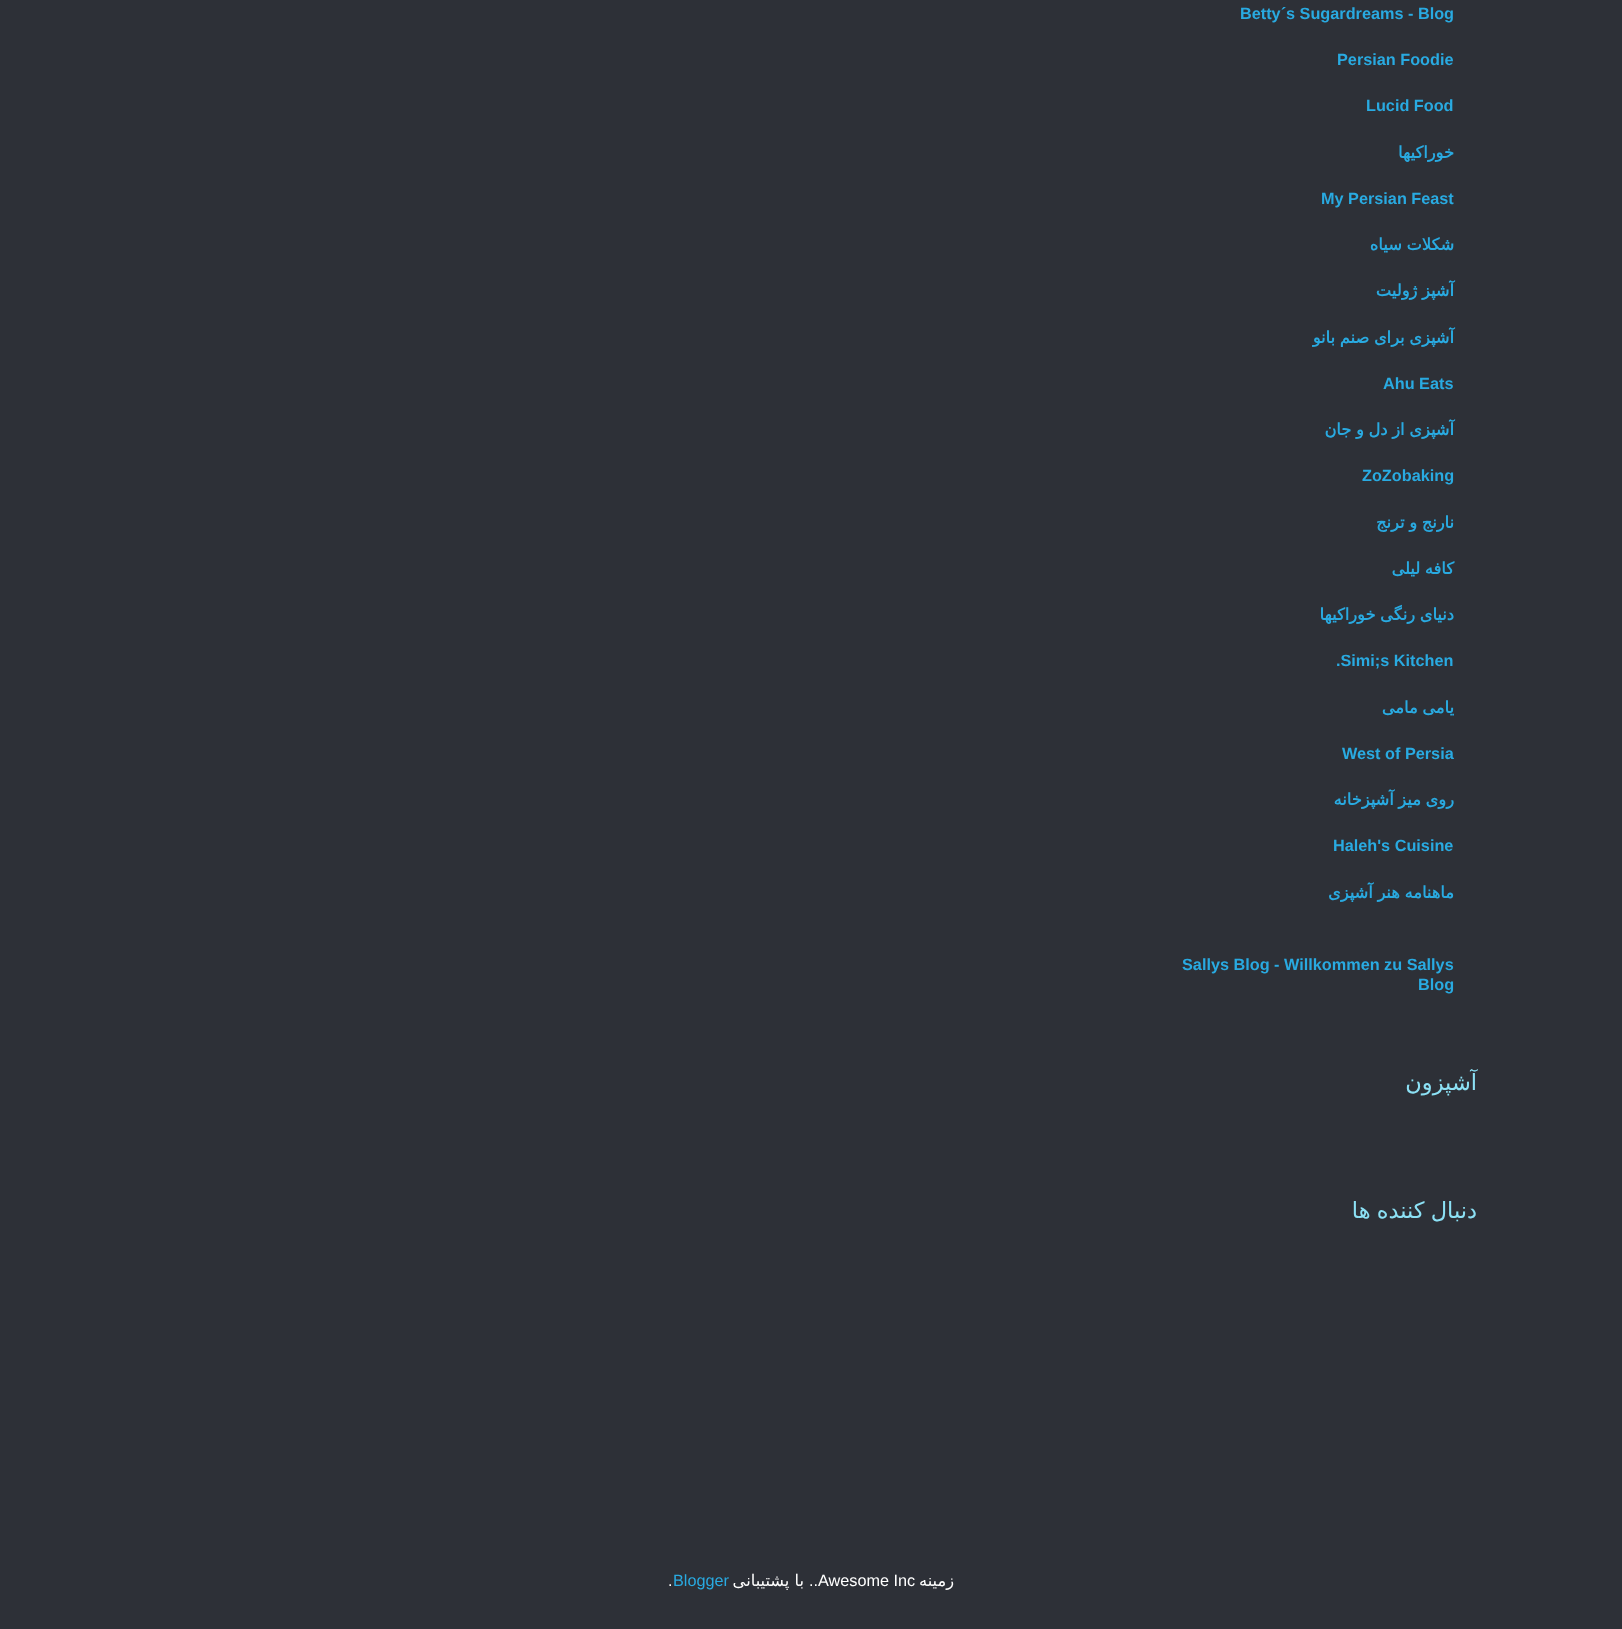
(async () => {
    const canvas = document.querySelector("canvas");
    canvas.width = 1622;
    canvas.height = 1629;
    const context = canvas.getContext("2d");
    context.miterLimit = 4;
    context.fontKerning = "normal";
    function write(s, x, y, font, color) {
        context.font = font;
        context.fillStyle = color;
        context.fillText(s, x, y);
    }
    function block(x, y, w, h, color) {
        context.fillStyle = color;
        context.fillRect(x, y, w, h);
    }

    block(0, 0, 1622, 1629, "rgb(45, 48, 55)");
    write("Betty´s Sugardreams - Blog", 1240, 19, "bold 16.25px Liberation Sans", "rgb(41, 170, 225)");
    write("Persian Foodie", 1337, 65, "bold 16.25px Liberation Sans", "rgb(41, 170, 225)");
    write("Lucid Food", 1366, 111, "bold 16.25px Liberation Sans", "rgb(41, 170, 225)");
    context.direction = "rtl";
    write("خوراکیها", 1454, 158, "bold 16.25px DejaVu Sans", "rgb(41, 170, 225)");
    context.direction = "ltr";
    write("My Persian Feast", 1321, 204, "bold 16.25px Liberation Sans", "rgb(41, 170, 225)");
    context.wordSpacing = "-0.5px";
    context.direction = "rtl";
    write("شکلات سیاه", 1454, 250, "bold 16.25px DejaVu Sans", "rgb(41, 170, 225)");
    write("آشپز ژولیت", 1454, 296, "bold 16.25px DejaVu Sans", "rgb(41, 170, 225)");
    write("آشپزی برای صنم بانو", 1454, 343, "bold 16.25px DejaVu Sans", "rgb(41, 170, 225)");
    context.wordSpacing = "0px";
    context.direction = "ltr";
    write("Ahu Eats", 1383, 389, "bold 16.25px Liberation Sans", "rgb(41, 170, 225)");
    context.wordSpacing = "-0.5px";
    context.direction = "rtl";
    write("آشپزی از دل و جان", 1454, 435, "bold 16.25px DejaVu Sans", "rgb(41, 170, 225)");
    context.wordSpacing = "0px";
    context.direction = "ltr";
    write("ZoZobaking", 1362, 481, "bold 16.25px Liberation Sans", "rgb(41, 170, 225)");
    context.wordSpacing = "-0.5px";
    context.direction = "rtl";
    write("نارنج و ترنج", 1454, 528, "bold 16.25px DejaVu Sans", "rgb(41, 170, 225)");
    write("کافه لیلی", 1454, 574, "bold 16.25px DejaVu Sans", "rgb(41, 170, 225)");
    write("دنیای رنگی خوراکیها", 1454, 620, "bold 16.25px DejaVu Sans", "rgb(41, 170, 225)");
    context.wordSpacing = "0px";
    context.direction = "ltr";
    write(".Simi;s Kitchen", 1336, 666, "bold 16.25px Liberation Sans", "rgb(41, 170, 225)");
    context.wordSpacing = "-0.5px";
    context.direction = "rtl";
    write("یامی مامی", 1454, 713, "bold 16.25px DejaVu Sans", "rgb(41, 170, 225)");
    context.wordSpacing = "0px";
    context.direction = "ltr";
    write("West of Persia", 1342, 759, "bold 16.25px Liberation Sans", "rgb(41, 170, 225)");
    context.wordSpacing = "-0.5px";
    context.direction = "rtl";
    write("روی میز آشپزخانه", 1454, 805, "bold 16.25px DejaVu Sans", "rgb(41, 170, 225)");
    context.wordSpacing = "0px";
    context.direction = "ltr";
    write("Haleh's Cuisine", 1333, 851, "bold 16.25px Liberation Sans", "rgb(41, 170, 225)");
    context.wordSpacing = "-0.5px";
    context.direction = "rtl";
    write("ماهنامه هنر آشپزی", 1454, 898, "bold 16.25px DejaVu Sans", "rgb(41, 170, 225)");
    context.wordSpacing = "0px";
    context.direction = "ltr";
    write("Sallys Blog - Willkommen zu Sallys", 1182, 970, "bold 16.25px Liberation Sans", "rgb(41, 170, 225)");
    write("Blog", 1418, 990, "bold 16.25px Liberation Sans", "rgb(41, 170, 225)");
    context.direction = "rtl";
    write("آشپزون", 1477, 1090, "22.5px DejaVu Sans", "rgb(140, 225, 245)");
    context.wordSpacing = "-1px";
    write("دنبال کننده ها", 1477, 1218, "22.5px DejaVu Sans", "rgb(140, 225, 245)");
    context.wordSpacing = "0px";
    context.direction = "ltr";
    write(".", 668, 1586, "16.25px Liberation Sans", "rgb(255, 255, 255)");
    write("Blogger", 673, 1586, "16.25px Liberation Sans", "rgb(41, 170, 225)");
    context.direction = "rtl";
    write("با پشتیبانی", 804, 1586, "16.25px DejaVu Sans", "rgb(255, 255, 255)");
    write("..", 818, 1586, "16.25px Liberation Sans", "rgb(255, 255, 255)");
    context.direction = "ltr";
    write("Awesome Inc", 818, 1586, "16.25px Liberation Sans", "rgb(255, 255, 255)");
    context.direction = "rtl";
    write("زمینه", 954, 1586, "16.25px DejaVu Sans", "rgb(255, 255, 255)");
})();
